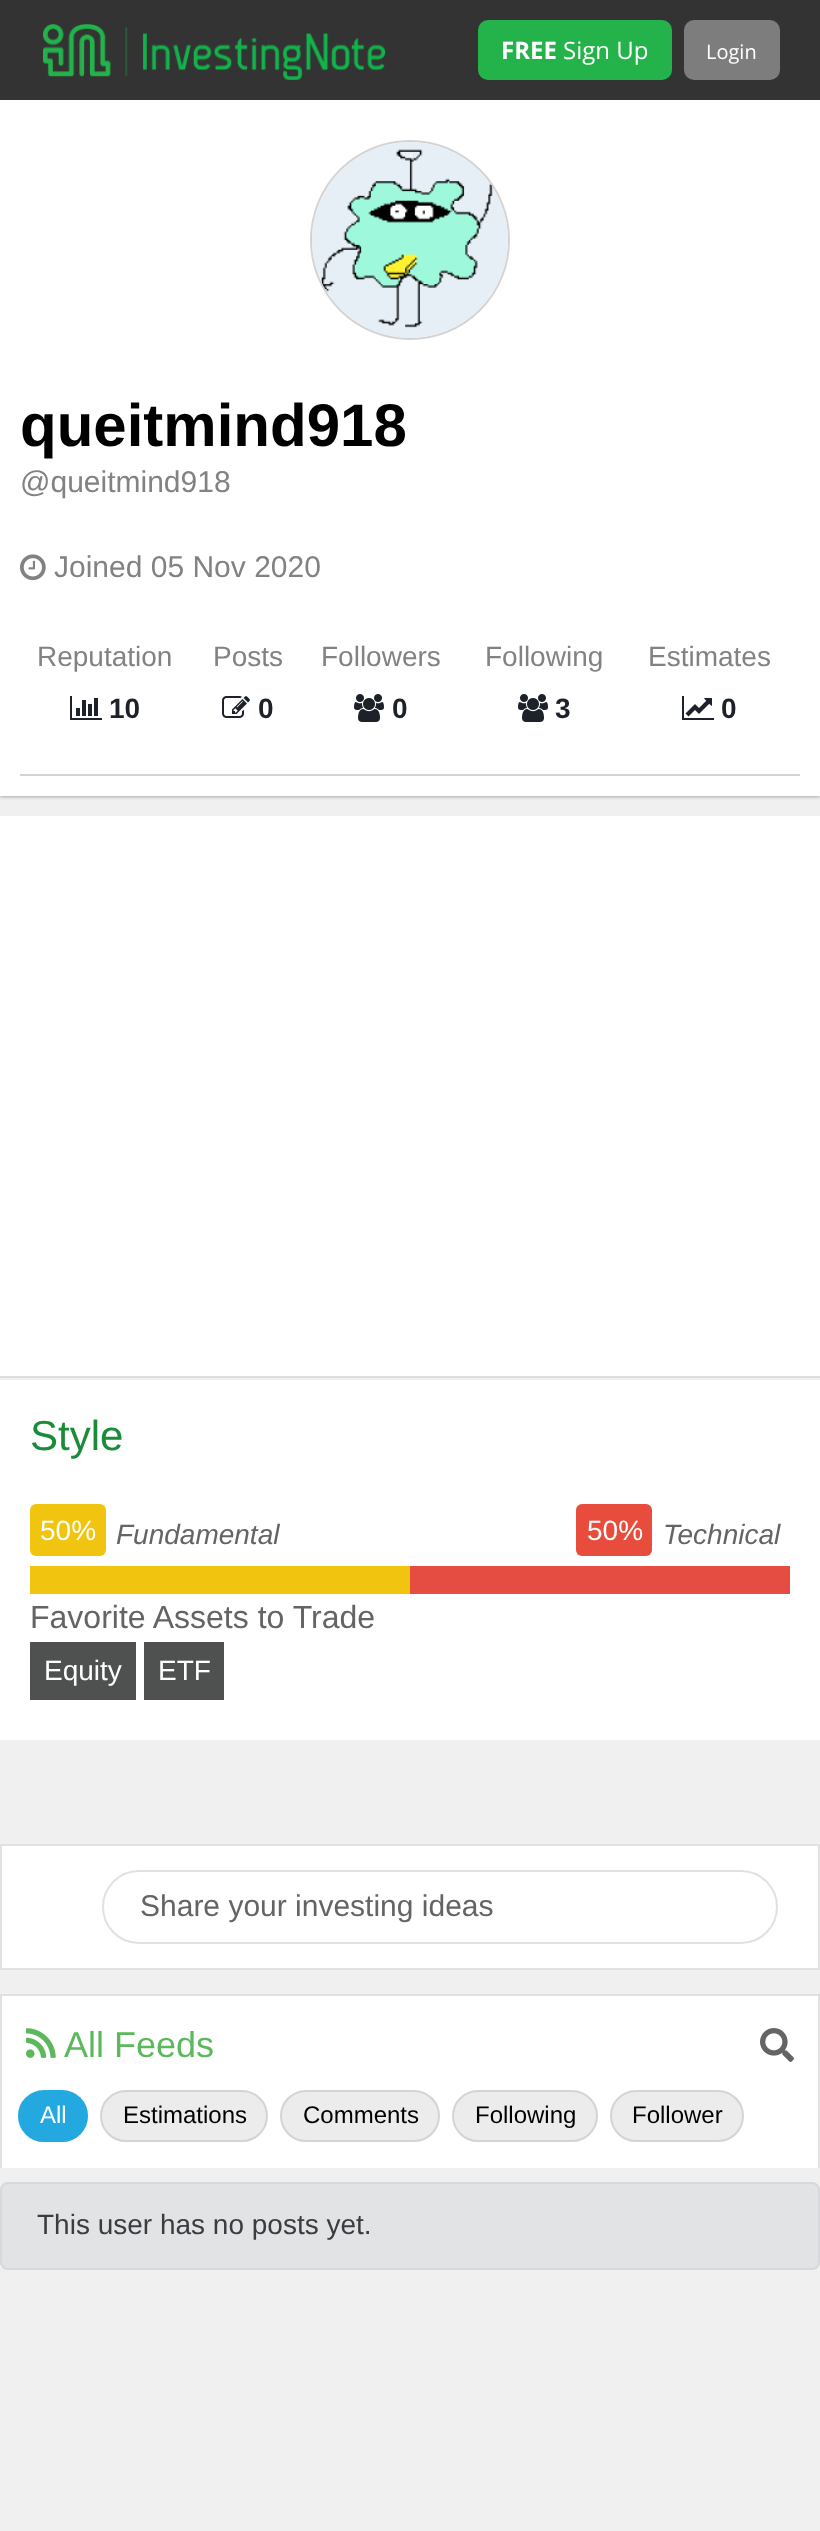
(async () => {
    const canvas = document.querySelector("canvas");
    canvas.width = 820;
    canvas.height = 2531;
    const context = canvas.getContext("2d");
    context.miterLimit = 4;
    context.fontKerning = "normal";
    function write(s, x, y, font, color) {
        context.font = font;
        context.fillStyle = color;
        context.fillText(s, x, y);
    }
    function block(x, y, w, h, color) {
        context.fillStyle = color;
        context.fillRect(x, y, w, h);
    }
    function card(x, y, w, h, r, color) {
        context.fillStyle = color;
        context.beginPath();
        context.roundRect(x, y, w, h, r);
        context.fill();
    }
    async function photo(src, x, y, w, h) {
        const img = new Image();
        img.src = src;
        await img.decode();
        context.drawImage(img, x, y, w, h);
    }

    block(0, 0, 820, 2531, "rgb(240, 240, 240)");
    context.fillStyle = "rgb(130, 130, 130)";
    context.filter = "blur(2px)";
    context.beginPath();
    context.rect(0, 100, 820, 696);
    context.fill();
    context.filter = "none";
    block(0, 0, 820, 100, "rgb(51, 51, 51)");
    await photo("media/1.png", 43, 23, 343, 57);
    card(478, 20, 194, 60, 10, "rgb(36, 178, 75)");
    write("FREE", 501, 59, "bold 24px Open Sans", "rgb(255, 255, 255)");
    write("Sign Up", 563, 59, "24px Open Sans", "rgb(255, 255, 255)");
    card(684, 20, 96, 60, 10, "rgb(125, 125, 125)");
    write("Login", 706, 59, "20px Open Sans", "rgb(255, 255, 255)");
    block(0, 100, 820, 696, "rgb(255, 255, 255)");
    block(20, 774, 780, 2, "rgb(211, 211, 211)");
    context.beginPath();
    context.arc(410, 240, 99, 0, Math.PI * 2);
    context.strokeStyle = "rgb(211, 211, 211)";
    context.lineWidth = 2;
    context.stroke();
    await photo("media/2.png", 312, 142, 196, 196);
    write("queitmind918", 20, 446, "bold 60px Liberation Sans", "rgb(0, 0, 0)");
    write("@queitmind918", 20, 492, "30px Liberation Sans", "rgb(130, 130, 130)");
    await photo("media/3.png", 20, 554, 26, 27);
    write("Joined 05 Nov 2020", 54, 577, "30px Liberation Sans", "rgb(130, 130, 130)");
    write("Reputation", 37, 666, "28px Liberation Sans", "rgb(130, 130, 130)");
    write("Posts", 213, 666, "28px Liberation Sans", "rgb(130, 130, 130)");
    write("Followers", 321, 666, "28px Liberation Sans", "rgb(130, 130, 130)");
    write("Following", 485, 666, "28px Liberation Sans", "rgb(130, 130, 130)");
    write("Estimates", 648, 666, "28px Liberation Sans", "rgb(130, 130, 130)");
    await photo("media/4.png", 70, 696, 32, 24);
    write("10", 109, 718, "bold 28px Liberation Sans", "rgb(29, 33, 41)");
    await photo("media/5.png", 222, 696, 28, 22);
    write("0", 258, 718, "bold 28px Liberation Sans", "rgb(29, 33, 41)");
    await photo("media/6.png", 354, 694, 30, 28);
    write("0", 392, 718, "bold 28px Liberation Sans", "rgb(29, 33, 41)");
    await photo("media/6.png", 518, 694, 30, 28);
    write("3", 555, 718, "bold 28px Liberation Sans", "rgb(29, 33, 41)");
    await photo("media/7.png", 682, 696, 32, 24);
    write("0", 721, 718, "bold 28px Liberation Sans", "rgb(29, 33, 41)");
    block(0, 816, 820, 924, "rgb(255, 255, 255)");
    block(0, 1376, 820, 2, "rgb(221, 221, 221)");
    block(0, 1378, 820, 2, "rgb(239, 239, 239)");
    write("Style", 30, 1450, "42px Liberation Sans", "rgb(26, 140, 57)");
    card(30, 1504, 76, 52, 6, "rgb(241, 196, 15)");
    write("50%", 40, 1540, "28px Liberation Sans", "rgb(255, 255, 255)");
    write("Fundamental", 116, 1544, "italic 28px Liberation Sans", "rgb(100, 100, 100)");
    card(576, 1504, 76, 52, 6, "rgb(231, 76, 60)");
    write("50%", 587, 1540, "28px Liberation Sans", "rgb(255, 255, 255)");
    write("Technical", 663, 1544, "italic 28px Liberation Sans", "rgb(100, 100, 100)");
    block(410, 1566, 380, 28, "rgb(229, 77, 66)");
    block(30, 1566, 380, 28, "rgb(241, 196, 15)");
    write("Favorite Assets to Trade", 30, 1628, "32px Liberation Sans", "rgb(100, 100, 100)");
    block(30, 1642, 106, 58, "rgb(79, 80, 80)");
    write("Equity", 44, 1680, "28px Liberation Sans", "rgb(255, 255, 255)");
    block(144, 1642, 80, 58, "rgb(79, 80, 80)");
    write("ETF", 158, 1680, "28px Liberation Sans", "rgb(255, 255, 255)");
    context.beginPath();
    context.rect(1, 1845, 818, 124);
    context.fill();
    context.strokeStyle = "rgb(225, 225, 225)";
    context.stroke();
    context.beginPath();
    context.roundRect(103, 1871, 674, 72, 36);
    context.stroke();
    write("Share your investing ideas", 140, 1916, "30px Liberation Sans", "rgb(100, 100, 100)");
    block(2, 1996, 816, 172, "rgb(255, 255, 255)");
    block(0, 1994, 820, 2, "rgb(225, 225, 225)");
    block(818, 1994, 2, 174, "rgb(225, 225, 225)");
    block(0, 1994, 2, 174, "rgb(225, 225, 225)");
    await photo("media/8.png", 26, 2028, 30, 30);
    write("All Feeds", 64, 2057, "36px Liberation Sans", "rgb(92, 184, 92)");
    await photo("media/9.png", 760, 2028, 34, 34);
    context.fillStyle = "rgb(36, 168, 224)";
    context.beginPath();
    context.roundRect(19, 2091, 68, 50, 25);
    context.fill();
    context.strokeStyle = "rgb(36, 168, 224)";
    context.stroke();
    write("All", 40, 2123, "24px Liberation Sans", "rgb(255, 255, 255)");
    context.fillStyle = "rgb(236, 236, 236)";
    context.beginPath();
    context.roundRect(101, 2091, 166, 50, 25);
    context.fill();
    context.strokeStyle = "rgb(212, 212, 212)";
    context.stroke();
    write("Estimations", 123, 2123, "24px Liberation Sans", "rgb(0, 0, 0)");
    context.fillStyle = "rgb(236, 236, 236)";
    context.beginPath();
    context.roundRect(281, 2091, 158, 50, 25);
    context.fill();
    context.stroke();
    write("Comments", 303, 2123, "24px Liberation Sans", "rgb(0, 0, 0)");
    context.fillStyle = "rgb(236, 236, 236)";
    context.beginPath();
    context.roundRect(453, 2091, 144, 50, 25);
    context.fill();
    context.stroke();
    write("Following", 475, 2123, "24px Liberation Sans", "rgb(0, 0, 0)");
    context.fillStyle = "rgb(236, 236, 236)";
    context.beginPath();
    context.roundRect(611, 2091, 132, 50, 25);
    context.fill();
    context.stroke();
    write("Follower", 632, 2123, "24px Liberation Sans", "rgb(0, 0, 0)");
    context.fillStyle = "rgb(226, 227, 229)";
    context.beginPath();
    context.roundRect(1, 2183, 818, 86, 7);
    context.fill();
    context.strokeStyle = "rgb(214, 216, 219)";
    context.stroke();
    write("This user has no posts yet.", 37, 2234, "28px Liberation Sans", "rgb(56, 61, 65)");
})();
